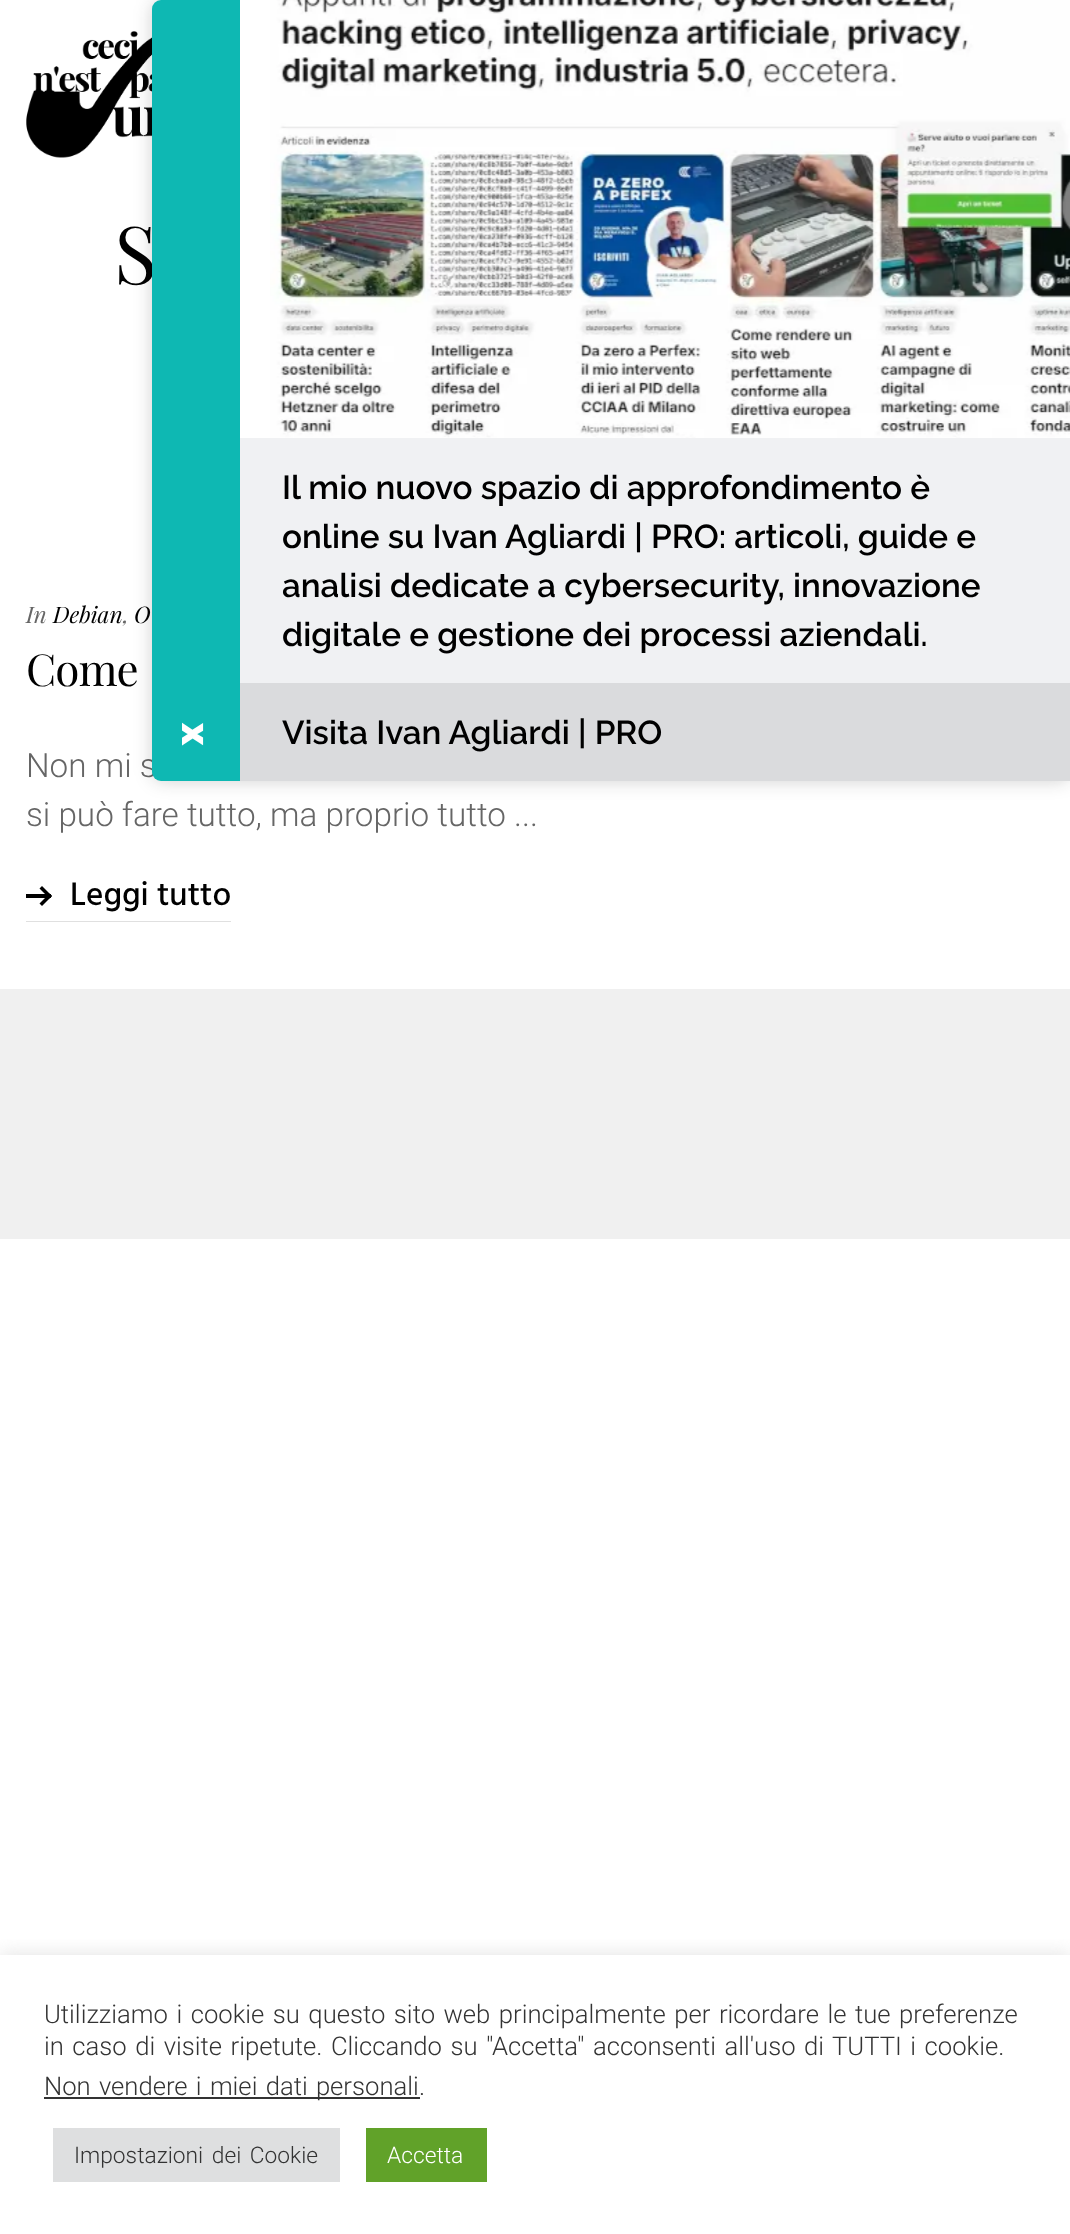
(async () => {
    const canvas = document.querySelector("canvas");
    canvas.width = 1070;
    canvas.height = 2234;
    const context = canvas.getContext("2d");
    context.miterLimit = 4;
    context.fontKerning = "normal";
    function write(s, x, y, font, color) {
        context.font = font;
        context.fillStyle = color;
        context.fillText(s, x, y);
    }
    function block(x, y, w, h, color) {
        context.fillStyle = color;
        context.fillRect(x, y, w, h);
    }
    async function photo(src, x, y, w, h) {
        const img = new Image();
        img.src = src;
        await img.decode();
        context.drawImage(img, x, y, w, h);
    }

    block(0, 0, 1070, 2234, "rgb(255, 255, 255)");
    await photo("media/1.png", 26, 31, 126, 127);
    context.letterSpacing = "-2px";
    write("S", 114, 284, "80px Playfair Display", "rgb(0, 0, 0)");
    context.letterSpacing = "0px";
    write("In", 26, 623, "italic 22.75px Playfair Display", "rgb(102, 102, 102)");
    write("Debian", 53, 623, "italic 22.75px Playfair Display", "rgb(0, 0, 0)");
    write(",", 123, 623, "italic 22.75px Playfair Display", "rgb(102, 102, 102)");
    write("O", 134, 623, "italic 22.75px Playfair Display", "rgb(0, 0, 0)");
    context.letterSpacing = "-1px";
    write("Come", 26, 686, "44px Playfair Display", "rgb(0, 0, 0)");
    context.letterSpacing = "0px";
    write("Non mi s", 26, 777, "300 33.25px Roboto", "rgb(102, 102, 102)");
    write("si può fare tutto, ma proprio tutto ...", 26, 826, "300 33.25px Roboto", "rgb(102, 102, 102)");
    block(26, 921, 205, 1, "rgb(224, 224, 224)");
    block(26, 894, 25, 4, "rgb(0, 0, 0)");
    context.beginPath();
    context.moveTo(42, 886);
    context.lineTo(52, 896);
    context.lineTo(49.5, 898.5);
    context.lineTo(39.5, 888.5);
    context.closePath();
    context.fill();
    context.beginPath();
    context.moveTo(49.5, 893.5);
    context.lineTo(52, 896);
    context.lineTo(42, 906);
    context.lineTo(39.5, 903.5);
    context.closePath();
    context.fill();
    write("Leggi tutto", 70, 905, "500 33.25px Hind", "rgb(0, 0, 0)");
    block(0, 989, 1070, 250, "rgb(240, 240, 240)");
    context.fillStyle = "rgba(19, 19, 19, 0.2)";
    context.filter = "blur(9px)";
    context.beginPath();
    context.roundRect(152, 0, 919, 781, 12);
    context.fill();
    context.filter = "none";
    context.fillStyle = "rgb(14, 184, 179)";
    context.beginPath();
    context.roundRect(152, 0, 88, 781, [9, 0, 0, 9]);
    context.fill();
    context.font = "900 40px Raleway";
    context.fillStyle = "rgb(255, 255, 255)";
    context.save();
    context.translate(182, 723);
    context.rotate(90 * Math.PI / 180);
    context.fillText("x", 0, 0);
    context.restore();
    block(240, 0, 830, 438, "rgb(255, 255, 255)");
    await photo("media/2.png", 270, 0, 800, 438);
    block(240, 438, 830, 245, "rgb(240, 241, 243)");
    write("Il mio nuovo spazio di approfondimento è", 282, 499, "600 33.25px Raleway", "rgb(0, 0, 0)");
    write("online su Ivan Agliardi | PRO: articoli, guide e", 282, 548, "600 33.25px Raleway", "rgb(0, 0, 0)");
    write("analisi dedicate a cybersecurity, innovazione", 282, 597, "600 33.25px Raleway", "rgb(0, 0, 0)");
    write("digitale e gestione dei processi aziendali.", 282, 646, "600 33.25px Raleway", "rgb(0, 0, 0)");
    block(240, 683, 830, 98, "rgb(218, 219, 221)");
    write("Visita Ivan Agliardi | PRO", 282, 744, "600 33.25px Raleway", "rgb(0, 0, 0)");
    context.save();
    context.beginPath();
    context.rect(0, 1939, 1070, 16);
    context.clip();
    context.fillStyle = "rgba(172, 171, 171, 0.3)";
    context.filter = "blur(9px)";
    context.beginPath();
    context.rect(0, 1953, 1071, 280);
    context.fill();
    context.filter = "none";
    context.restore();
    context.wordSpacing = "2.25px";
    write("Utilizziamo i cookie su questo sito web principalmente per ricordare le tue preferenze", 44, 2023, "300 25.65px Roboto", "rgb(51, 51, 51)");
    write("in caso di visite ripetute. Cliccando su \"Accetta\" acconsenti all'uso di TUTTI i cookie.", 44, 2055, "300 25.65px Roboto", "rgb(51, 51, 51)");
    block(44, 2097, 376, 2, "rgb(51, 51, 51)");
    context.wordSpacing = "2px";
    write("Non vendere i miei dati personali", 44, 2095, "300 25.65px Roboto", "rgb(51, 51, 51)");
    context.wordSpacing = "0px";
    write(".", 419, 2095, "300 25.65px Roboto", "rgb(51, 51, 51)");
    block(53, 2128, 287, 54, "rgb(222, 223, 224)");
    context.wordSpacing = "3px";
    write("Impostazioni dei Cookie", 74, 2163, "300 22.75px Roboto", "rgb(51, 51, 51)");
    block(366, 2128, 121, 54, "rgb(97, 162, 41)");
    context.wordSpacing = "0px";
    write("Accetta", 387, 2163, "300 22.75px Roboto", "rgb(255, 255, 255)");
})();
